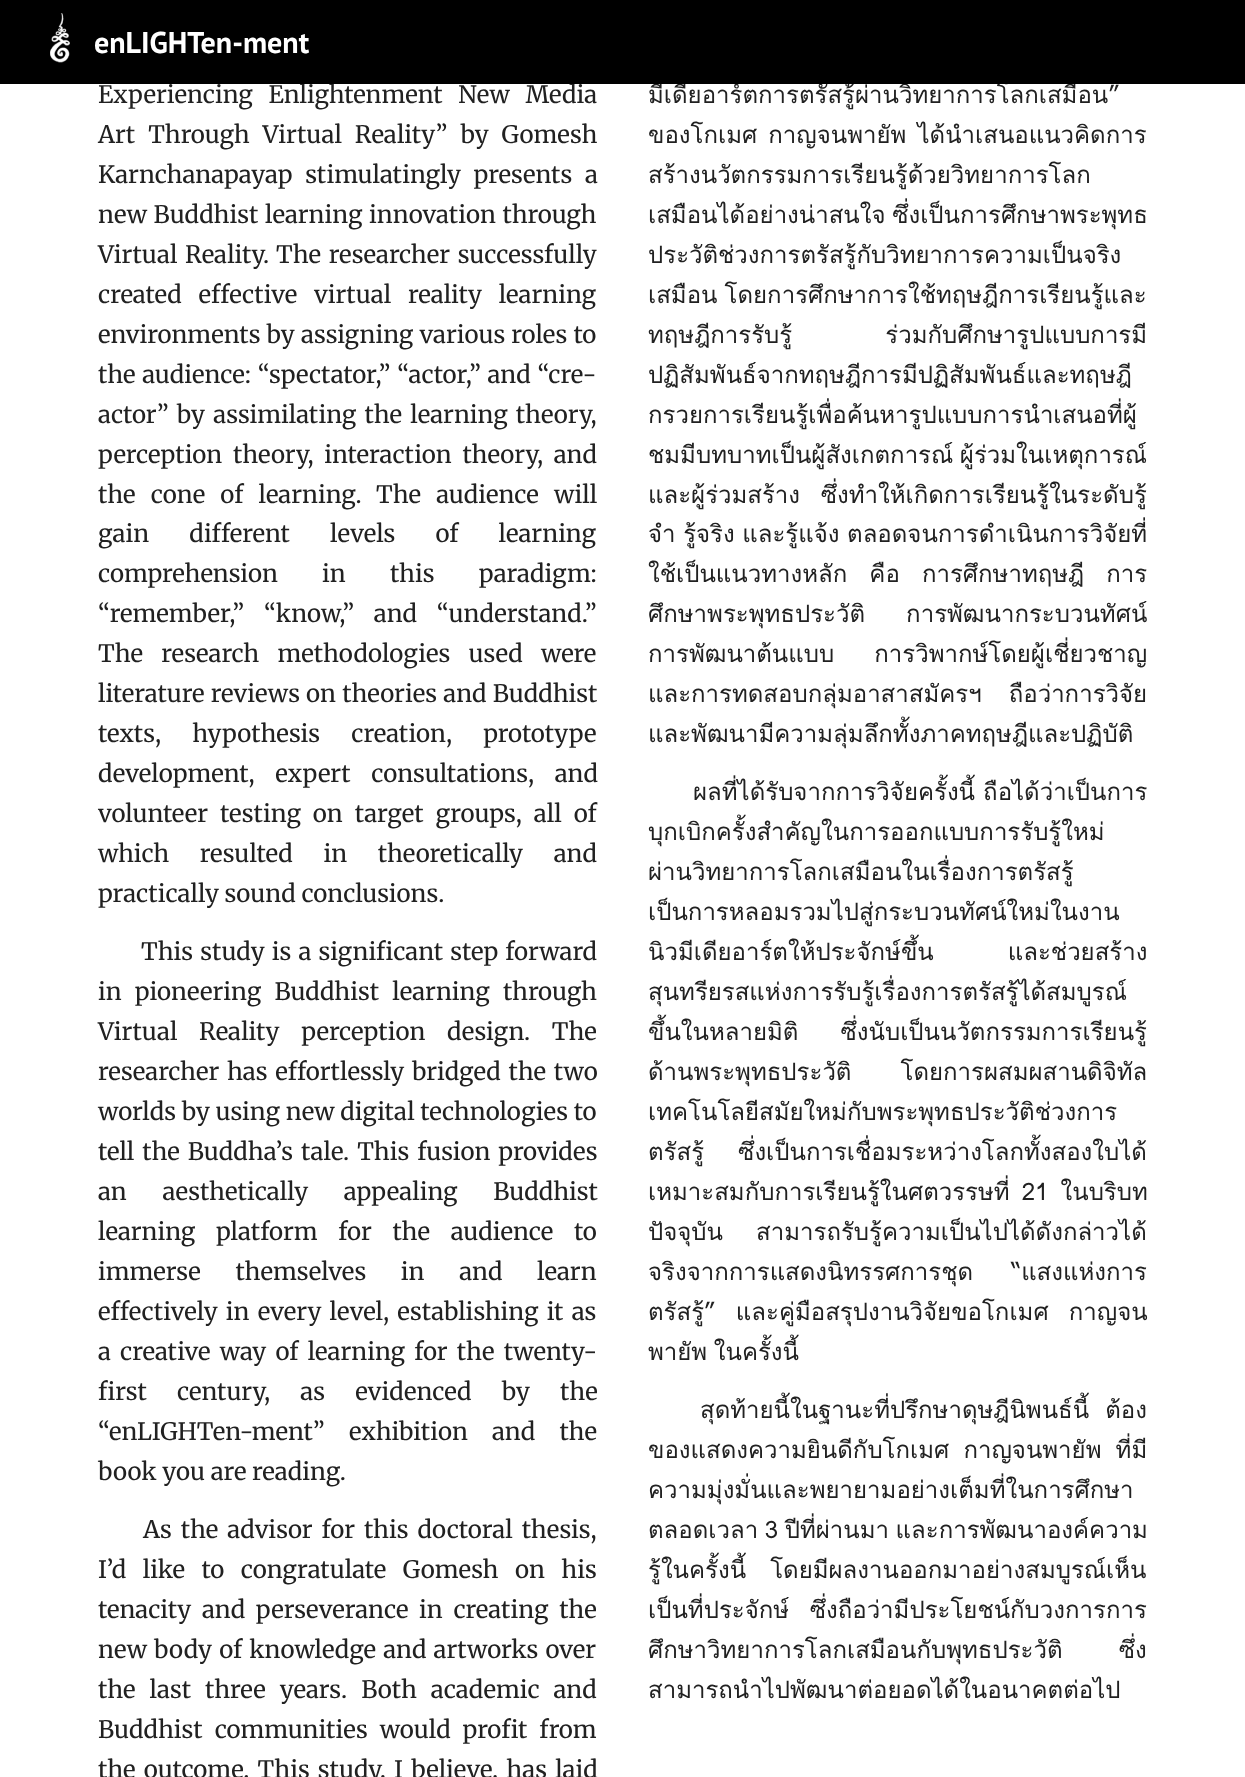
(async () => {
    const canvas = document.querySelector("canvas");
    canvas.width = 1245;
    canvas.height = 1777;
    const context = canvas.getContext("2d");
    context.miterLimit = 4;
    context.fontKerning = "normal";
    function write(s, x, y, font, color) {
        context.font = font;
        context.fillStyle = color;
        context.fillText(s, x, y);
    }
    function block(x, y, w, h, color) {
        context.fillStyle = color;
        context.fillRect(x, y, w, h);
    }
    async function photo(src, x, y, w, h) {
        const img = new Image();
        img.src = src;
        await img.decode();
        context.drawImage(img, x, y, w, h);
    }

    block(0, 0, 1245, 1777, "rgb(255, 255, 255)");
    context.wordSpacing = "10px";
    write("Experiencing Enlightenment New Media", 98, 103, "24px Merriweather", "rgb(33, 33, 33)");
    context.wordSpacing = "0px";
    write("มีเดียอาร์ตการตรัสรู้ผ่านวิทยาการโลกเสมือน”", 648, 103, "24px Loma", "rgb(33, 33, 33)");
    block(0, 0, 1245, 84, "rgb(0, 0, 0)");
    await photo("media/1.png", 50, 13, 20, 50);
    write("enLIGHTen-ment", 94, 53, "bold 30px PT Sans", "rgb(255, 255, 255)");
    context.wordSpacing = "7.25px";
    write("Art Through Virtual Reality” by Gomesh", 98, 143, "24px Merriweather", "rgb(33, 33, 33)");
    context.wordSpacing = "7px";
    write("Karnchanapayap stimulatingly presents a", 98, 183, "24px Merriweather", "rgb(33, 33, 33)");
    context.wordSpacing = "1px";
    write("new Buddhist learning innovation through", 98, 223, "24px Merriweather", "rgb(33, 33, 33)");
    context.wordSpacing = "2px";
    write("Virtual Reality.", 98, 263, "24px Merriweather", "rgb(33, 33, 33)");
    write("The researcher successfully", 276, 263, "24px Merriweather", "rgb(33, 33, 33)");
    context.wordSpacing = "11px";
    write("created effective virtual reality learning", 98, 303, "24px Merriweather", "rgb(33, 33, 33)");
    context.wordSpacing = "0.5px";
    write("environments by assigning various roles to", 98, 343, "24px Merriweather", "rgb(33, 33, 33)");
    context.wordSpacing = "1px";
    write("the audience: “spectator,” “actor,” and “cre-", 98, 383, "24px Merriweather", "rgb(33, 33, 33)");
    context.wordSpacing = "2.5px";
    write("actor” by assimilating the learning theory,", 98, 423, "24px Merriweather", "rgb(33, 33, 33)");
    context.wordSpacing = "5px";
    write("perception theory, interaction theory, and", 98, 463, "24px Merriweather", "rgb(33, 33, 33)");
    context.wordSpacing = "9.5px";
    write("the cone of learning.", 98, 503, "24px Merriweather", "rgb(33, 33, 33)");
    write("The audience will", 376, 503, "24px Merriweather", "rgb(33, 33, 33)");
    context.wordSpacing = "34.5px";
    write("gain different levels of learning", 98, 542, "24px Merriweather", "rgb(33, 33, 33)");
    context.wordSpacing = "38.5px";
    write("comprehension in this paradigm:", 98, 582, "24px Merriweather", "rgb(33, 33, 33)");
    context.wordSpacing = "14px";
    write("“remember,” “know,” and “understand.”", 98, 622, "24px Merriweather", "rgb(33, 33, 33)");
    context.wordSpacing = "12.5px";
    write("The research methodologies used were", 98, 662, "24px Merriweather", "rgb(33, 33, 33)");
    context.wordSpacing = "0.5px";
    write("literature reviews on theories and Buddhist", 98, 702, "24px Merriweather", "rgb(33, 33, 33)");
    context.wordSpacing = "25.5px";
    write("texts, hypothesis creation, prototype", 98, 742, "24px Merriweather", "rgb(33, 33, 33)");
    context.wordSpacing = "15px";
    write("development, expert consultations, and", 98, 782, "24px Merriweather", "rgb(33, 33, 33)");
    context.wordSpacing = "6.25px";
    write("volunteer testing on target groups, all of", 98, 822, "24px Merriweather", "rgb(33, 33, 33)");
    context.wordSpacing = "25px";
    write("which resulted in theoretically and", 98, 862, "24px Merriweather", "rgb(33, 33, 33)");
    context.wordSpacing = "0px";
    write("practically sound conclusions.", 98, 902, "24px Merriweather", "rgb(33, 33, 33)");
    context.wordSpacing = "1.5px";
    write("This study is a significant step forward", 141, 960, "24px Merriweather", "rgb(33, 33, 33)");
    context.wordSpacing = "7.5px";
    write("in pioneering Buddhist learning through", 98, 1000, "24px Merriweather", "rgb(33, 33, 33)");
    context.wordSpacing = "16px";
    write("Virtual Reality perception design. The", 98, 1040, "24px Merriweather", "rgb(33, 33, 33)");
    context.wordSpacing = "2px";
    write("researcher has effortlessly bridged the two", 98, 1080, "24px Merriweather", "rgb(33, 33, 33)");
    context.wordSpacing = "0px";
    write("worlds by using new digital technologies to", 98, 1120, "24px Merriweather", "rgb(33, 33, 33)");
    context.wordSpacing = "2.25px";
    write("tell the Buddha’s tale. This fusion provides", 98, 1160, "24px Merriweather", "rgb(33, 33, 33)");
    context.wordSpacing = "30px";
    write("an aesthetically appealing Buddhist", 98, 1200, "24px Merriweather", "rgb(33, 33, 33)");
    context.wordSpacing = "15px";
    write("learning platform for the audience to", 98, 1240, "24px Merriweather", "rgb(33, 33, 33)");
    context.wordSpacing = "29px";
    write("immerse themselves in and learn", 98, 1280, "24px Merriweather", "rgb(33, 33, 33)");
    context.wordSpacing = "2.5px";
    write("effectively in every level, establishing it as", 98, 1320, "24px Merriweather", "rgb(33, 33, 33)");
    context.wordSpacing = "3.5px";
    write("a creative way of learning for the twenty-", 98, 1360, "24px Merriweather", "rgb(33, 33, 33)");
    context.wordSpacing = "24.5px";
    write("first century, as evidenced by the", 98, 1400, "24px Merriweather", "rgb(33, 33, 33)");
    context.wordSpacing = "18.5px";
    write("“enLIGHTen-ment” exhibition and the", 98, 1440, "24px Merriweather", "rgb(33, 33, 33)");
    context.wordSpacing = "0px";
    write("book you are reading.", 98, 1480, "24px Merriweather", "rgb(33, 33, 33)");
    context.wordSpacing = "3.25px";
    write("As the advisor for this doctoral thesis,", 143, 1538, "24px Merriweather", "rgb(33, 33, 33)");
    context.wordSpacing = "10.75px";
    write("I’d like to congratulate Gomesh on his", 98, 1578, "24px Merriweather", "rgb(33, 33, 33)");
    context.wordSpacing = "5px";
    write("tenacity and perseverance in creating the", 98, 1618, "24px Merriweather", "rgb(33, 33, 33)");
    context.wordSpacing = "1.5px";
    write("new body of knowledge and artworks over", 98, 1658, "24px Merriweather", "rgb(33, 33, 33)");
    context.wordSpacing = "8.25px";
    write("the last three years. Both academic and", 98, 1698, "24px Merriweather", "rgb(33, 33, 33)");
    context.wordSpacing = "6.25px";
    write("Buddhist communities would profit from", 98, 1738, "24px Merriweather", "rgb(33, 33, 33)");
    context.wordSpacing = "2.5px";
    write("the outcome. This study, I believe, has laid", 98, 1778, "24px Merriweather", "rgb(33, 33, 33)");
    context.wordSpacing = "3px";
    write("ของโกเมศ กาญจนพายัพ ได้นำเสนอแนวคิดการ", 648, 143, "24px Loma", "rgb(33, 33, 33)");
    context.wordSpacing = "0px";
    write("สร้างนวัตกรรมการเรียนรู้ด้วยวิทยาการโลก", 648, 183, "24px Loma", "rgb(33, 33, 33)");
    context.wordSpacing = "-1.5px";
    write("เสมือนได้อย่างน่าสนใจ ซึ่งเป็นการศึกษาพระพุทธ", 648, 223, "24px Loma", "rgb(33, 33, 33)");
    context.wordSpacing = "0px";
    write("ประวัติช่วงการตรัสรู้กับวิทยาการความเป็นจริง", 648, 263, "24px Loma", "rgb(33, 33, 33)");
    context.wordSpacing = "-1px";
    write("เสมือน โดยการศึกษาการใช้ทฤษฎีการเรียนรู้และ", 648, 303, "24px Loma", "rgb(33, 33, 33)");
    context.wordSpacing = "85px";
    write("ทฤษฎีการรับรู้ ร่วมกับศึกษารูปแบบการมี", 648, 343, "24px Loma", "rgb(33, 33, 33)");
    context.wordSpacing = "0px";
    write("ปฏิสัมพันธ์จากทฤษฎีการมีปฏิสัมพันธ์และทฤษฎี", 648, 383, "24px Loma", "rgb(33, 33, 33)");
    write("กรวยการเรียนรู้เพื่อค้นหารูปแบบการนำเสนอที่ผู้", 648, 423, "24px Loma", "rgb(33, 33, 33)");
    context.wordSpacing = "-1.5px";
    write("ชมมีบทบาทเป็นผู้สังเกตการณ์ ผู้ร่วมในเหตุการณ์", 648, 463, "24px Loma", "rgb(33, 33, 33)");
    context.wordSpacing = "12.5px";
    write("และผู้ร่วมสร้าง ซึ่งทำให้เกิดการเรียนรู้ในระดับรู้", 648, 503, "24px Loma", "rgb(33, 33, 33)");
    context.wordSpacing = "-0.5px";
    write("จำ รู้จริง และรู้แจ้ง ตลอดจนการดำเนินการวิจัยที่", 648, 542, "24px Loma", "rgb(33, 33, 33)");
    context.wordSpacing = "14px";
    write("ใช้เป็นแนวทางหลัก คือ การศึกษาทฤษฎี การ", 648, 582, "24px Loma", "rgb(33, 33, 33)");
    context.wordSpacing = "33px";
    write("ศึกษาพระพุทธประวัติ การพัฒนากระบวนทัศน์", 648, 622, "24px Loma", "rgb(33, 33, 33)");
    context.wordSpacing = "32px";
    write("การพัฒนาต้นแบบ การวิพากษ์โดยผู้เชี่ยวชาญ", 648, 662, "24px Loma", "rgb(33, 33, 33)");
    context.wordSpacing = "19px";
    write("และการทดสอบกลุ่มอาสาสมัครฯ ถือว่าการวิจัย", 648, 702, "24px Loma", "rgb(33, 33, 33)");
    context.wordSpacing = "0px";
    write("และพัฒนามีความลุ่มลึกทั้งภาคทฤษฎีและปฏิบัติ", 648, 742, "24px Loma", "rgb(33, 33, 33)");
    write("ผลที่ได้รับจากการวิจัยครั้งนี้ ถือได้ว่าเป็นการ", 693, 800, "24px Loma", "rgb(33, 33, 33)");
    write("บุกเบิกครั้งสำคัญในการออกแบบการรับรู้ใหม่", 648, 840, "24px Loma", "rgb(33, 33, 33)");
    write("ผ่านวิทยาการโลกเสมือนในเรื่องการตรัสรู้", 648, 880, "24px Loma", "rgb(33, 33, 33)");
    write("เป็นการหลอมรวมไปสู่กระบวนทัศน์ใหม่ในงาน", 648, 920, "24px Loma", "rgb(33, 33, 33)");
    context.wordSpacing = "66px";
    write("นิวมีเดียอาร์ตให้ประจักษ์ขึ้น และช่วยสร้าง", 648, 960, "24px Loma", "rgb(33, 33, 33)");
    context.wordSpacing = "0px";
    write("สุนทรียรสแห่งการรับรู้เรื่องการตรัสรู้ได้สมบูรณ์", 648, 1000, "24px Loma", "rgb(33, 33, 33)");
    context.wordSpacing = "34px";
    write("ขึ้นในหลายมิติ ซึ่งนับเป็นนวัตกรรมการเรียนรู้", 648, 1040, "24px Loma", "rgb(33, 33, 33)");
    context.wordSpacing = "41px";
    write("ด้านพระพุทธประวัติ โดยการผสมผสานดิจิทัล", 648, 1080, "24px Loma", "rgb(33, 33, 33)");
    context.wordSpacing = "0px";
    write("เทคโนโลยีสมัยใหม่กับพระพุทธประวัติช่วงการ", 648, 1120, "24px Loma", "rgb(33, 33, 33)");
    context.wordSpacing = "26px";
    write("ตรัสรู้ ซึ่งเป็นการเชื่อมระหว่างโลกทั้งสองใบได้", 648, 1160, "24px Loma", "rgb(33, 33, 33)");
    context.wordSpacing = "4px";
    write("เหมาะสมกับการเรียนรู้ในศตวรรษที่ 21 ในบริบท", 648, 1200, "24px Loma", "rgb(33, 33, 33)");
    context.wordSpacing = "25px";
    write("ปัจจุบัน สามารถรับรู้ความเป็นไปได้ดังกล่าวได้", 648, 1240, "24px Loma", "rgb(33, 33, 33)");
    context.wordSpacing = "30px";
    write("จริงจากการแสดงนิทรรศการชุด “แสงแห่งการ", 648, 1280, "24px Loma", "rgb(33, 33, 33)");
    context.wordSpacing = "12px";
    write("ตรัสรู้” และคู่มือสรุปงานวิจัยขอโกเมศ กาญจน", 648, 1320, "24px Loma", "rgb(33, 33, 33)");
    context.wordSpacing = "-1.5px";
    write("พายัพ ในครั้งนี้", 648, 1360, "24px Loma", "rgb(33, 33, 33)");
    context.wordSpacing = "8px";
    write("สุดท้ายนี้ในฐานะที่ปรึกษาดุษฎีนิพนธ์นี้ ต้อง", 700, 1418, "24px Loma", "rgb(33, 33, 33)");
    context.wordSpacing = "6px";
    write("ของแสดงความยินดีกับโกเมศ กาญจนพายัพ ที่มี", 648, 1458, "24px Loma", "rgb(33, 33, 33)");
    context.wordSpacing = "0px";
    write("ความมุ่งมั่นและพยายามอย่างเต็มที่ในการศึกษา", 648, 1498, "24px Loma", "rgb(33, 33, 33)");
    context.wordSpacing = "-1.5px";
    write("ตลอดเวลา 3 ปีที่ผ่านมา และการพัฒนาองค์ความ", 648, 1538, "24px Loma", "rgb(33, 33, 33)");
    context.wordSpacing = "16px";
    write("รู้ในครั้งนี้ โดยมีผลงานออกมาอย่างสมบูรณ์เห็น", 648, 1578, "24px Loma", "rgb(33, 33, 33)");
    context.wordSpacing = "12.5px";
    write("เป็นที่ประจักษ์ ซึ่งถือว่ามีประโยชน์กับวงการการ", 648, 1618, "24px Loma", "rgb(33, 33, 33)");
    context.wordSpacing = "48px";
    write("ศึกษาวิทยาการโลกเสมือนกับพุทธประวัติ ซึ่ง", 648, 1658, "24px Loma", "rgb(33, 33, 33)");
    context.wordSpacing = "0px";
    write("สามารถนำไปพัฒนาต่อยอดได้ในอนาคตต่อไป", 648, 1698, "24px Loma", "rgb(33, 33, 33)");
})();
